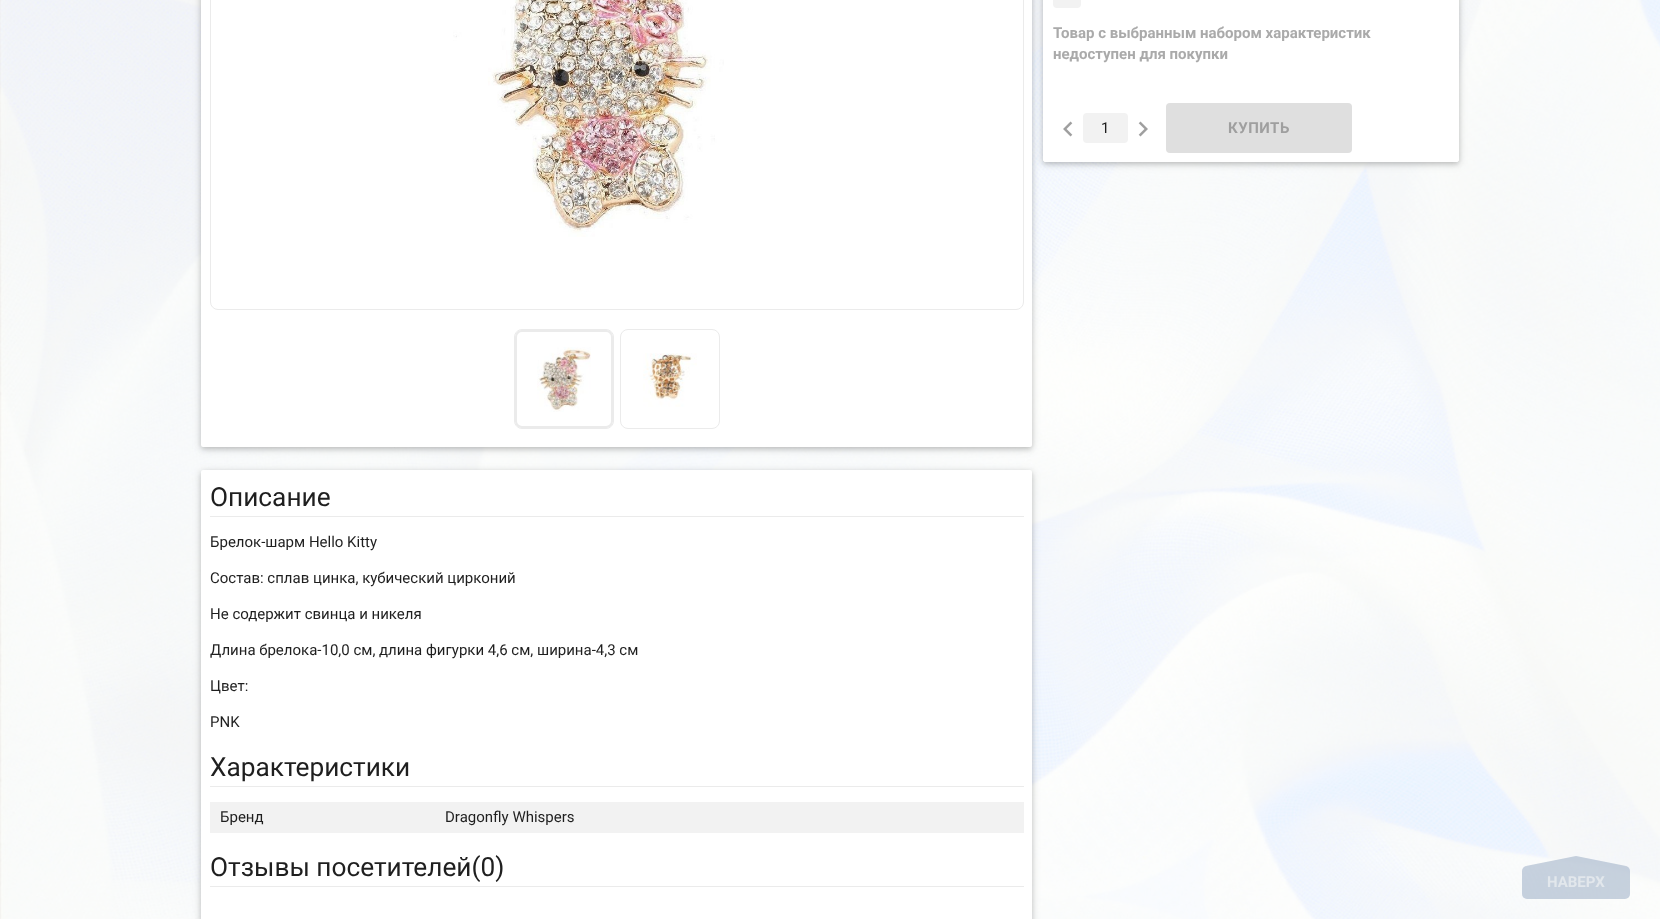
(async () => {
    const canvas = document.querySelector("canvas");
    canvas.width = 1660;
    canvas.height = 919;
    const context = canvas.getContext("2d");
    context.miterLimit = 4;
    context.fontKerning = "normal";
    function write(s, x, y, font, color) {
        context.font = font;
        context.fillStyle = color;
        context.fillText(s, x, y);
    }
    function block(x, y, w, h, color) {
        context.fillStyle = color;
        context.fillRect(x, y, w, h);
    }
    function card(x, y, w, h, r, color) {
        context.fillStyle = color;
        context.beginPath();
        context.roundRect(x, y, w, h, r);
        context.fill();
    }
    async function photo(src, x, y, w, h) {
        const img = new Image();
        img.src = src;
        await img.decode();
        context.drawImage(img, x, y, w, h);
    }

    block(0, 0, 1660, 919, "rgb(255, 255, 255)");
    await photo("media/1.png", 0, 0, 1660, 919);
    context.fillStyle = "rgba(0, 0, 0, 0.12)";
    context.filter = "blur(5px)";
    context.beginPath();
    context.roundRect(1043, -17, 416, 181, 2);
    context.fill();
    context.filter = "none";
    context.fillStyle = "rgba(0, 0, 0, 0.16)";
    context.filter = "blur(2.5px)";
    context.beginPath();
    context.roundRect(1043, -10, 416, 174, 2);
    context.fill();
    context.filter = "none";
    context.fillStyle = "rgb(255, 255, 255)";
    context.beginPath();
    context.roundRect(1043.5, -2.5, 415, 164, 1.5);
    context.fill();
    context.strokeStyle = "rgb(255, 255, 255)";
    context.stroke();
    context.fillStyle = "rgba(0, 0, 0, 0.12)";
    context.filter = "blur(5px)";
    context.beginPath();
    context.roundRect(201, -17, 831, 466, 2);
    context.fill();
    context.filter = "none";
    context.fillStyle = "rgba(0, 0, 0, 0.16)";
    context.filter = "blur(2.5px)";
    context.beginPath();
    context.roundRect(201, -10, 831, 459, 2);
    context.fill();
    context.filter = "none";
    card(201, -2, 831, 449, 2, "rgb(255, 255, 255)");
    context.beginPath();
    context.roundRect(210.5, -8.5, 813, 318, 7.5);
    context.strokeStyle = "rgb(235, 235, 235)";
    context.stroke();
    await photo("media/2.png", 453, 0, 271, 237);
    context.beginPath();
    context.roundRect(516, 331, 96, 96, 6);
    context.lineWidth = 2;
    context.stroke();
    context.beginPath();
    context.roundRect(514.5, 329.5, 99, 99, 7.5);
    context.lineWidth = 1;
    context.stroke();
    await photo("media/3.png", 537, 347, 54, 65);
    context.beginPath();
    context.roundRect(620.5, 329.5, 99, 99, 7.5);
    context.stroke();
    await photo("media/4.png", 643, 353, 54, 54);
    card(1053, -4, 28, 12, 4, "rgb(242, 242, 242)");
    write("Товар с выбранным набором характеристик", 1053, 38, "bold 15px Roboto", "rgb(170, 170, 170)");
    write("недоступен для покупки", 1053, 59, "bold 15px Roboto", "rgb(170, 170, 170)");
    await photo("media/5.png", 1063, 121, 10, 16);
    card(1083, 113, 45, 30, 4, "rgb(242, 242, 242)");
    write("1", 1101, 133, "15px Roboto", "rgb(31, 31, 31)");
    await photo("media/6.png", 1138, 121, 10, 16);
    card(1166, 103, 186, 50, 4, "rgb(223, 223, 223)");
    context.letterSpacing = "0.5px";
    write("КУПИТЬ", 1228, 133, "bold 15px Roboto", "rgb(159, 159, 159)");
    context.fillStyle = "rgba(0, 0, 0, 0.12)";
    context.filter = "blur(5px)";
    context.beginPath();
    context.roundRect(201, 472, 831, 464, 2);
    context.fill();
    context.filter = "none";
    context.fillStyle = "rgba(0, 0, 0, 0.16)";
    context.filter = "blur(2.5px)";
    context.beginPath();
    context.roundRect(201, 472, 831, 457, 2);
    context.fill();
    context.filter = "none";
    card(201, 470, 831, 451, 2, "rgb(255, 255, 255)");
    block(210, 516, 814, 1, "rgb(235, 235, 235)");
    context.letterSpacing = "0px";
    write("Описание", 210, 506, "26.25px Roboto", "rgb(31, 31, 31)");
    write("Брелок-шарм Hello Kitty", 210, 547, "15px Roboto", "rgb(31, 31, 31)");
    write("Состав: сплав цинка, кубический цирконий", 210, 583, "15px Roboto", "rgb(31, 31, 31)");
    write("Не содержит свинца и никеля", 210, 619, "15px Roboto", "rgb(31, 31, 31)");
    write("Длина брелока-10,0 см, длина фигурки 4,6 см, ширина-4,3 см", 210, 655, "15px Roboto", "rgb(31, 31, 31)");
    write("Цвет:", 210, 691, "15px Roboto", "rgb(31, 31, 31)");
    write("PNK", 210, 727, "15px Roboto", "rgb(31, 31, 31)");
    block(210, 786, 814, 1, "rgb(235, 235, 235)");
    write("Характеристики", 210, 776, "26.25px Roboto", "rgb(31, 31, 31)");
    block(210, 802, 814, 31, "rgb(242, 242, 242)");
    write("Бренд", 220, 822, "15px Roboto", "rgb(31, 31, 31)");
    write("Dragonfly Whispers", 445, 822, "15px Roboto", "rgb(31, 31, 31)");
    block(210, 886, 814, 1, "rgb(235, 235, 235)");
    write("Отзывы посетителей(0)", 210, 876, "26.25px Roboto", "rgb(31, 31, 31)");
    card(1522, 866, 108, 33, 5, "rgba(145, 165, 192, 0.5)");
    context.beginPath();
    context.moveTo(1626, 866);
    context.lineTo(1526, 866);
    context.lineTo(1576, 856);
    context.closePath();
    context.fill();
    write("НАВЕРХ", 1547, 887, "bold 15px Roboto", "rgb(226, 231, 236)");
})();
